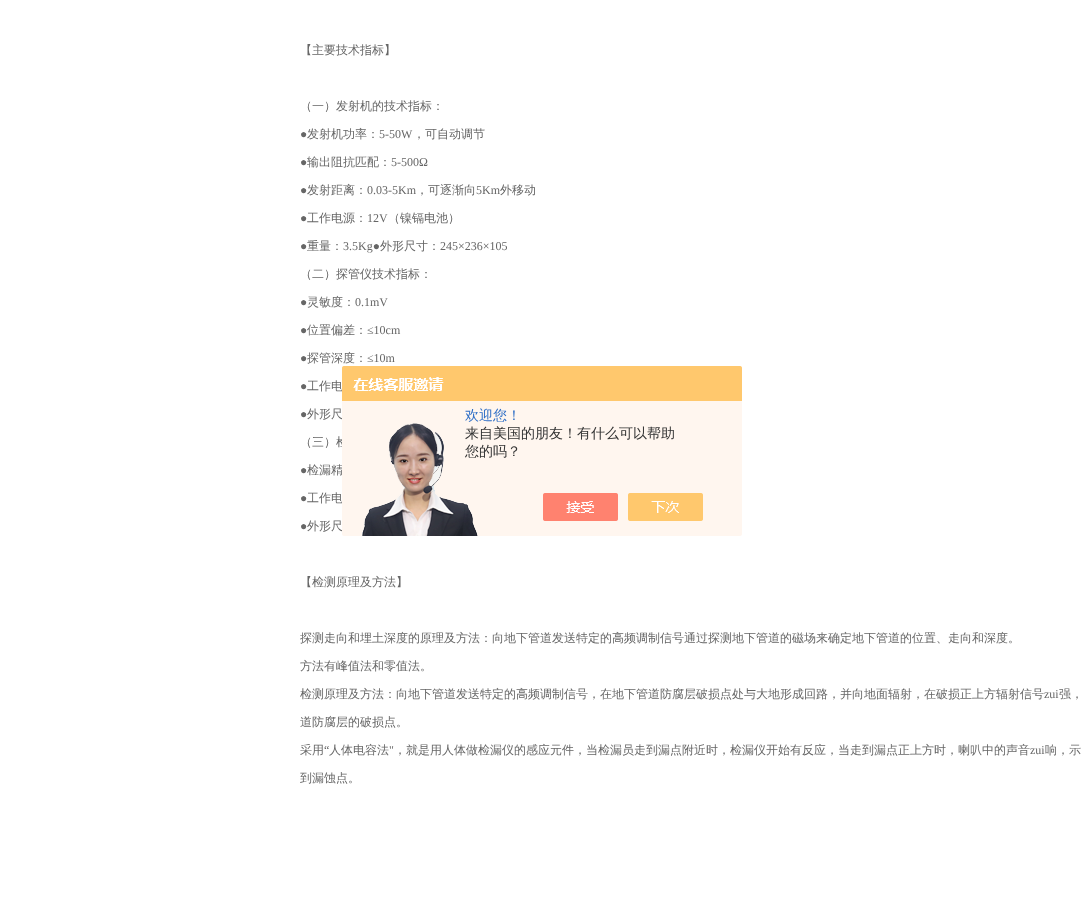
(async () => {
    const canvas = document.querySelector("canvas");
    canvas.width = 1083;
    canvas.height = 901;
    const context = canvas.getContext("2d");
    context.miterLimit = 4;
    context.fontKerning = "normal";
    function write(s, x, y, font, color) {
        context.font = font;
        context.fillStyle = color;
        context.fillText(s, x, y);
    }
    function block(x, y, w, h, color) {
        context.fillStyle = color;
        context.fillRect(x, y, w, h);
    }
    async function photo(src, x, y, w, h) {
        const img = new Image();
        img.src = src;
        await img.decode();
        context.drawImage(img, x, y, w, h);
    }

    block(0, 0, 1083, 901, "rgb(255, 255, 255)");
    write("【主要技术指标】", 300, 54, "500 12px WenQuanYi Zen Hei", "rgb(102, 102, 102)");
    write("（一）发射机的技术指标：", 300, 110, "500 12px WenQuanYi Zen Hei", "rgb(102, 102, 102)");
    write("●", 300, 138, "12px Liberation Serif", "rgb(102, 102, 102)");
    write("发射机功率：", 307, 138, "500 12px WenQuanYi Zen Hei", "rgb(102, 102, 102)");
    write("5-50W", 379, 138, "12px Liberation Serif", "rgb(102, 102, 102)");
    write("，可自动调节", 413, 138, "500 12px WenQuanYi Zen Hei", "rgb(102, 102, 102)");
    write("●", 300, 166, "12px Liberation Serif", "rgb(102, 102, 102)");
    write("输出阻抗匹配：", 307, 166, "500 12px WenQuanYi Zen Hei", "rgb(102, 102, 102)");
    write("5-500Ω", 391, 166, "12px Liberation Serif", "rgb(102, 102, 102)");
    write("●", 300, 194, "12px Liberation Serif", "rgb(102, 102, 102)");
    write("发射距离：", 307, 194, "500 12px WenQuanYi Zen Hei", "rgb(102, 102, 102)");
    write("0.03-5Km", 367, 194, "12px Liberation Serif", "rgb(102, 102, 102)");
    write("，可逐渐向", 416, 194, "500 12px WenQuanYi Zen Hei", "rgb(102, 102, 102)");
    write("5Km", 476, 194, "12px Liberation Serif", "rgb(102, 102, 102)");
    write("外移动", 500, 194, "500 12px WenQuanYi Zen Hei", "rgb(102, 102, 102)");
    write("●", 300, 222, "12px Liberation Serif", "rgb(102, 102, 102)");
    write("工作电源：", 307, 222, "500 12px WenQuanYi Zen Hei", "rgb(102, 102, 102)");
    write("12V", 367, 222, "12px Liberation Serif", "rgb(102, 102, 102)");
    write("（镍镉电池）", 388, 222, "500 12px WenQuanYi Zen Hei", "rgb(102, 102, 102)");
    write("●", 300, 250, "12px Liberation Serif", "rgb(102, 102, 102)");
    write("重量：", 307, 250, "500 12px WenQuanYi Zen Hei", "rgb(102, 102, 102)");
    write("3.5Kg●", 343, 250, "12px Liberation Serif", "rgb(102, 102, 102)");
    write("外形尺寸：", 380, 250, "500 12px WenQuanYi Zen Hei", "rgb(102, 102, 102)");
    write("245×236×105", 440, 250, "12px Liberation Serif", "rgb(102, 102, 102)");
    write("（二）探管仪技术指标：", 300, 278, "500 12px WenQuanYi Zen Hei", "rgb(102, 102, 102)");
    write("●", 300, 306, "12px Liberation Serif", "rgb(102, 102, 102)");
    write("灵敏度：", 307, 306, "500 12px WenQuanYi Zen Hei", "rgb(102, 102, 102)");
    write("0.1mV", 355, 306, "12px Liberation Serif", "rgb(102, 102, 102)");
    write("●", 300, 334, "12px Liberation Serif", "rgb(102, 102, 102)");
    write("位置偏差：", 307, 334, "500 12px WenQuanYi Zen Hei", "rgb(102, 102, 102)");
    write("≤10cm", 367, 334, "12px Liberation Serif", "rgb(102, 102, 102)");
    write("●", 300, 362, "12px Liberation Serif", "rgb(102, 102, 102)");
    write("探管深度：", 307, 362, "500 12px WenQuanYi Zen Hei", "rgb(102, 102, 102)");
    write("≤10m", 367, 362, "12px Liberation Serif", "rgb(102, 102, 102)");
    write("●", 300, 390, "12px Liberation Serif", "rgb(102, 102, 102)");
    write("工作电", 307, 390, "500 12px WenQuanYi Zen Hei", "rgb(102, 102, 102)");
    write("●", 300, 418, "12px Liberation Serif", "rgb(102, 102, 102)");
    write("外形尺", 307, 418, "500 12px WenQuanYi Zen Hei", "rgb(102, 102, 102)");
    write("（三）检", 300, 446, "500 12px WenQuanYi Zen Hei", "rgb(102, 102, 102)");
    write("●", 300, 474, "12px Liberation Serif", "rgb(102, 102, 102)");
    write("检漏精", 307, 474, "500 12px WenQuanYi Zen Hei", "rgb(102, 102, 102)");
    write("●", 300, 502, "12px Liberation Serif", "rgb(102, 102, 102)");
    write("工作电", 307, 502, "500 12px WenQuanYi Zen Hei", "rgb(102, 102, 102)");
    write("●", 300, 530, "12px Liberation Serif", "rgb(102, 102, 102)");
    write("外形尺", 307, 530, "500 12px WenQuanYi Zen Hei", "rgb(102, 102, 102)");
    write("【检测原理及方法】", 300, 586, "500 12px WenQuanYi Zen Hei", "rgb(102, 102, 102)");
    write("探测走向和埋土深度的原理及方法：向地下管道发送特定的高频调制信号通过探测地下管道的磁场来确定地下管道的位置、走向和深度。", 300, 642, "500 12px WenQuanYi Zen Hei", "rgb(102, 102, 102)");
    write("方法有峰值法和零值法。", 300, 670, "500 12px WenQuanYi Zen Hei", "rgb(102, 102, 102)");
    write("检测原理及方法：向地下管道发送特定的高频调制信号，在地下管道防腐层破损点处与大地形成回路，并向地面辐射，在破损正上方辐射信号", 300, 698, "500 12px WenQuanYi Zen Hei", "rgb(102, 102, 102)");
    write("zui", 1044, 698, "12px Liberation Serif", "rgb(102, 102, 102)");
    write("强，", 1059, 698, "500 12px WenQuanYi Zen Hei", "rgb(102, 102, 102)");
    write("道防腐层的破损点。", 300, 726, "500 12px WenQuanYi Zen Hei", "rgb(102, 102, 102)");
    write("采用", 300, 754, "500 12px WenQuanYi Zen Hei", "rgb(102, 102, 102)");
    write("“", 324, 754, "12px Liberation Serif", "rgb(102, 102, 102)");
    write("人体电容法", 329, 754, "500 12px WenQuanYi Zen Hei", "rgb(102, 102, 102)");
    write("\"", 389, 754, "12px Liberation Serif", "rgb(102, 102, 102)");
    write("，就是用人体做检漏仪的感应元件，当检漏员走到漏点附近时，检漏仪开始有反应，当走到漏点正上方时，喇叭中的声音", 394, 754, "500 12px WenQuanYi Zen Hei", "rgb(102, 102, 102)");
    write("zui", 1030, 754, "12px Liberation Serif", "rgb(102, 102, 102)");
    write("响，示", 1045, 754, "500 12px WenQuanYi Zen Hei", "rgb(102, 102, 102)");
    write("到漏蚀点。", 300, 782, "500 12px WenQuanYi Zen Hei", "rgb(102, 102, 102)");
    await photo("media/1.png", 342, 366, 400, 170);
    write("欢迎您！", 465, 420, "500 14px WenQuanYi Zen Hei", "rgb(46, 110, 198)");
    write("来自美国的朋友！有什么可以帮助", 465, 438, "500 14px WenQuanYi Zen Hei", "rgb(51, 51, 51)");
    write("您的吗？", 465, 456, "500 14px WenQuanYi Zen Hei", "rgb(51, 51, 51)");
})();
